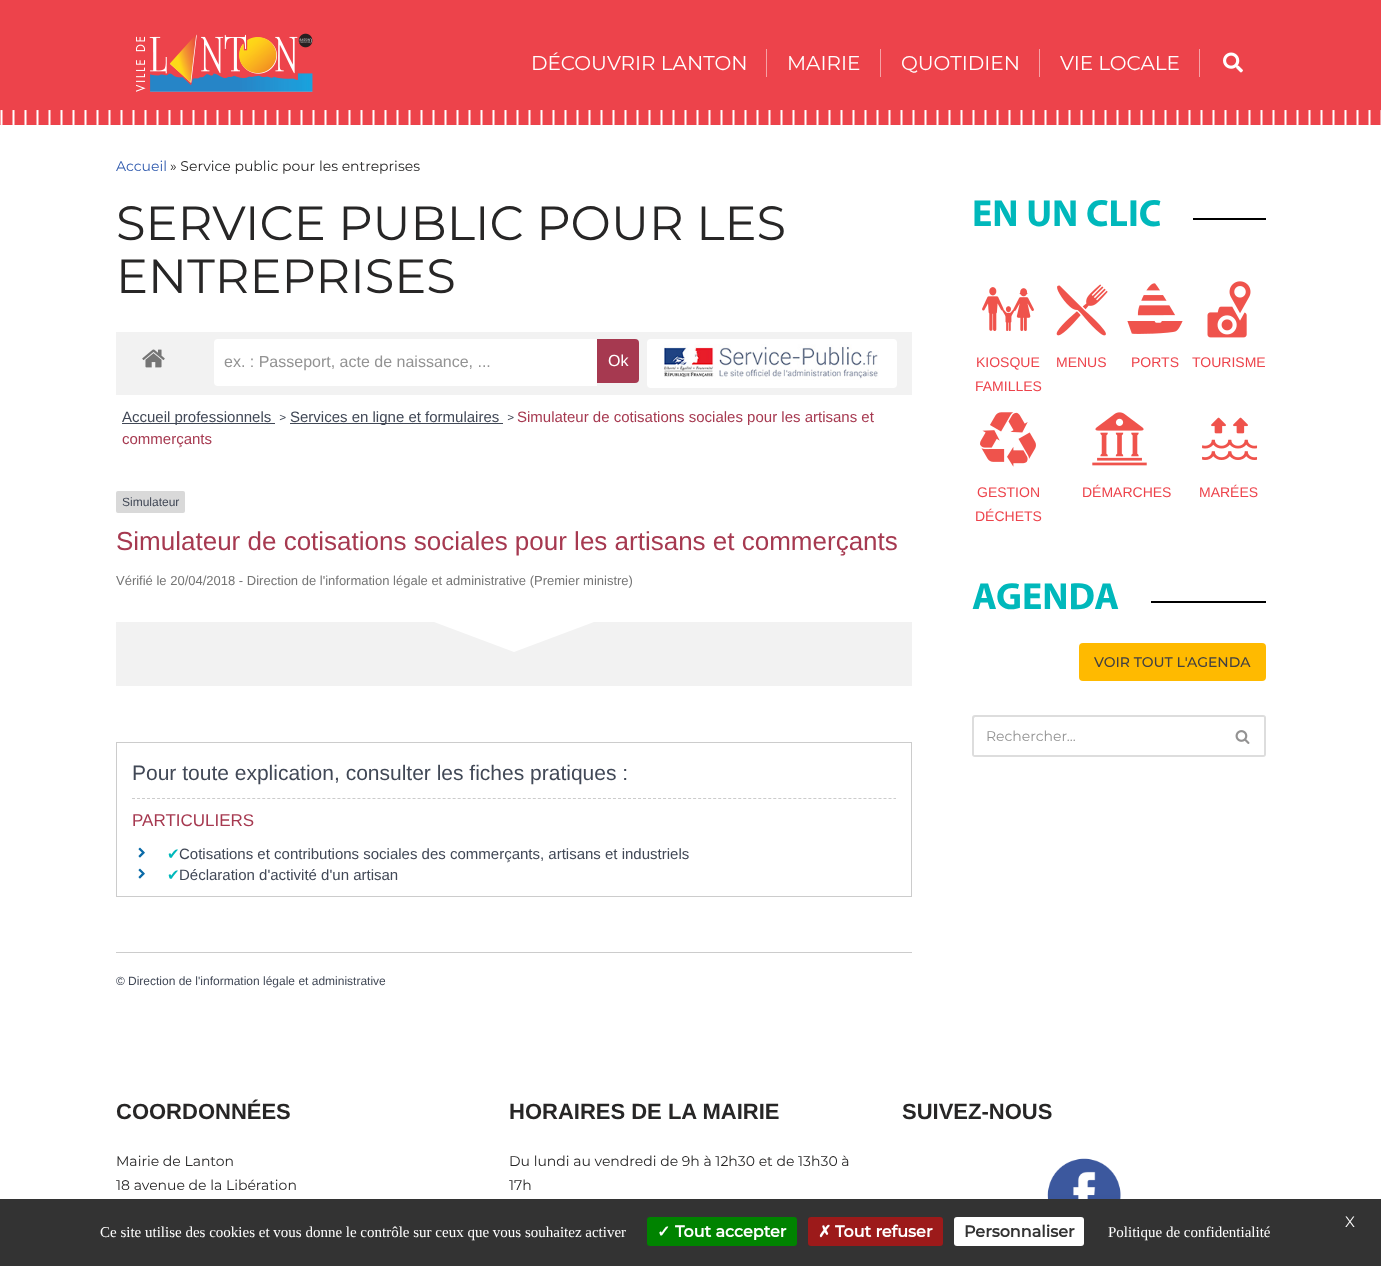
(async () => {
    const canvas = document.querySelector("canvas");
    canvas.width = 1381;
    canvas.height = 1266;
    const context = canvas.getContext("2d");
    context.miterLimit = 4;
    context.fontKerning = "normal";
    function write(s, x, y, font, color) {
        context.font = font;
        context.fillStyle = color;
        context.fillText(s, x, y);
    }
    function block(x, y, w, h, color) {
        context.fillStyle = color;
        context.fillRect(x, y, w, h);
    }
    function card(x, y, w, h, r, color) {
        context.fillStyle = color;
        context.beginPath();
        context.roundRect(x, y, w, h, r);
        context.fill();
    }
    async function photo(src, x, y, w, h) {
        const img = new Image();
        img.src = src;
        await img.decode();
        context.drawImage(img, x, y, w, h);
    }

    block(0, 0, 1381, 1266, "rgb(255, 255, 255)");
    block(0, 0, 1381, 125, "rgb(237, 67, 75)");
    await photo("media/1.png", 0, 110, 1381, 15);
    await photo("media/2.png", 136, 33, 177, 59);
    write("DÉCOUVRIR LANTON", 531, 70, "20px Montserrat", "rgb(255, 255, 255)");
    block(766, 49, 1, 28, "rgb(246, 161, 165)");
    write("MAIRIE", 787, 70, "20px Montserrat", "rgb(255, 255, 255)");
    block(880, 49, 1, 28, "rgb(246, 161, 165)");
    write("QUOTIDIEN", 901, 70, "20px Montserrat", "rgb(255, 255, 255)");
    block(1039, 49, 1, 28, "rgb(246, 161, 165)");
    write("VIE LOCALE", 1060, 70, "20px Montserrat", "rgb(255, 255, 255)");
    block(1199, 49, 1, 28, "rgb(246, 161, 165)");
    await photo("media/3.png", 1223, 52, 20, 21);
    write("Accueil", 116, 171, "14px Montserrat", "rgb(47, 90, 174)");
    write("» Service public pour les entreprises", 170, 171, "14px Montserrat", "rgb(39, 38, 38)");
    write("SERVICE PUBLIC POUR LES", 116, 240, "48px Montserrat", "rgb(39, 38, 38)");
    write("ENTREPRISES", 116, 293, "48px Montserrat", "rgb(39, 38, 38)");
    block(116, 332, 796, 63, "rgb(242, 242, 242)");
    await photo("media/4.png", 142, 349, 23, 19);
    context.fillStyle = "rgb(255, 255, 255)";
    context.beginPath();
    context.roundRect(214, 339, 383, 47, [4, 0, 0, 4]);
    context.fill();
    write("ex. : Passeport, acte de naissance, ...", 224, 367, "16px Liberation Sans", "rgb(147, 147, 147)");
    context.fillStyle = "rgb(166, 57, 80)";
    context.beginPath();
    context.roundRect(597, 339, 42, 44, [0, 4, 4, 0]);
    context.fill();
    write("Ok", 608, 366, "16px Liberation Sans", "rgb(255, 255, 255)");
    card(647, 339, 250, 49, 4, "rgb(255, 255, 255)");
    await photo("media/5.png", 664, 344, 215, 36);
    block(122, 423, 153, 1, "rgb(65, 72, 86)");
    write("Accueil professionnels", 122, 422, "15px Liberation Sans", "rgb(65, 72, 86)");
    write(">", 279, 422, "13px Montserrat", "rgb(65, 72, 86)");
    block(290, 423, 213, 1, "rgb(65, 72, 86)");
    write("Services en ligne et formulaires", 290, 422, "15px Liberation Sans", "rgb(65, 72, 86)");
    write(">", 507, 422, "13px Montserrat", "rgb(65, 72, 86)");
    write("Simulateur de cotisations sociales pour les artisans et", 517, 422, "15px Liberation Sans", "rgb(166, 57, 80)");
    write("commerçants", 122, 444, "15px Liberation Sans", "rgb(166, 57, 80)");
    card(116, 491, 69, 22, 2, "rgb(217, 217, 217)");
    write("Simulateur", 122, 506, "12px Liberation Sans", "rgb(65, 72, 86)");
    write("Simulateur de cotisations sociales pour les artisans et commerçants", 116, 550, "26px Liberation Sans", "rgb(166, 57, 80)");
    write("Vérifié le 20/04/2018 - Direction de l'information légale et administrative (Premier ministre)", 116, 585, "13px Liberation Sans", "rgb(117, 117, 117)");
    block(116, 622, 796, 64, "rgb(242, 242, 242)");
    context.fillStyle = "rgb(255, 255, 255)";
    context.beginPath();
    context.moveTo(434, 622);
    context.lineTo(594, 622);
    context.lineTo(514, 652);
    context.closePath();
    context.fill();
    context.strokeStyle = "rgb(204, 204, 204)";
    context.strokeRect(116.5, 742.5, 795, 154);
    context.beginPath();
    context.moveTo(132, 798.5);
    context.lineTo(896, 798.5);
    context.setLineDash([3, 2.01]);
    context.stroke();
    write("Pour toute explication, consulter les fiches pratiques :", 132, 780, "21px Liberation Sans", "rgb(65, 72, 86)");
    write("PARTICULIERS", 132, 826, "17px Liberation Sans", "rgb(166, 57, 80)");
    await photo("media/6.png", 138, 847, 7, 11);
    write("✔", 167, 859, "15px DejaVu Sans", "rgb(0, 184, 187)");
    write("Cotisations et contributions sociales des commerçants, artisans et industriels", 179, 859, "15px Liberation Sans", "rgb(65, 72, 86)");
    await photo("media/6.png", 138, 868, 7, 11);
    write("✔", 167, 880, "15px DejaVu Sans", "rgb(0, 184, 187)");
    write("Déclaration d'activité d'un artisan", 179, 880, "15px Liberation Sans", "rgb(65, 72, 86)");
    block(116, 952, 796, 1, "rgb(204, 204, 204)");
    context.save();
    context.beginPath();
    context.rect(116, 332, 796, 658);
    context.clip();
    write("©", 116, 985, "12px Liberation Sans", "rgb(65, 72, 86)");
    context.restore();
    write("Direction de l'information légale et administrative", 128, 985, "12px Liberation Sans", "rgb(65, 72, 86)");
    write("EN UN CLIC", 972, 226, "bold 38px Myriad", "rgb(0, 184, 187)");
    block(1193, 218, 73, 2, "rgb(0, 0, 0)");
    await photo("media/7.png", 982, 287, 52, 44);
    write("KIOSQUE", 976, 367, "14px Liberation Sans", "rgb(237, 67, 75)");
    write("FAMILLES", 975, 391, "14px Liberation Sans", "rgb(237, 67, 75)");
    await photo("media/8.png", 1056, 284, 52, 52);
    write("MENUS", 1056, 367, "14px Liberation Sans", "rgb(237, 67, 75)");
    await photo("media/9.png", 1127, 283, 56, 51);
    write("PORTS", 1131, 367, "14px Liberation Sans", "rgb(237, 67, 75)");
    await photo("media/10.png", 1207, 281, 44, 57);
    write("TOURISME", 1192, 367, "14px Liberation Sans", "rgb(237, 67, 75)");
    await photo("media/11.png", 980, 412, 56, 55);
    write("GESTION", 977, 497, "14px Liberation Sans", "rgb(237, 67, 75)");
    write("DÉCHETS", 975, 521, "14px Liberation Sans", "rgb(237, 67, 75)");
    await photo("media/12.png", 1092, 412, 55, 54);
    write("DÉMARCHES", 1082, 497, "14px Liberation Sans", "rgb(237, 67, 75)");
    await photo("media/13.png", 1202, 417, 56, 43);
    write("MARÉES", 1199, 497, "14px Liberation Sans", "rgb(237, 67, 75)");
    write("AGENDA", 972, 609, "bold 38px Myriad", "rgb(0, 184, 187)");
    block(1151, 601, 115, 2, "rgb(0, 0, 0)");
    card(1079, 643, 187, 38, 4, "rgb(255, 186, 0)");
    write("VOIR TOUT L'AGENDA", 1094, 667, "500 14px Montserrat", "rgb(65, 64, 66)");
    context.fillStyle = "rgb(221, 221, 221)";
    context.beginPath();
    context.moveTo(975, 715);
    context.lineTo(1221, 715);
    context.lineTo(1221, 757);
    context.lineTo(975, 757);
    context.bezierCurveTo(973, 757, 972, 756, 972, 754);
    context.lineTo(972, 718);
    context.bezierCurveTo(972, 716, 973, 715, 975, 715);
    context.closePath();
    context.moveTo(975, 717);
    context.lineTo(1221, 717);
    context.lineTo(1221, 755);
    context.lineTo(975, 755);
    context.lineTo(974, 755);
    context.lineTo(974, 718);
    context.closePath();
    context.fill("evenodd");
    write("Rechercher...", 986, 741, "14px Montserrat", "rgb(147, 147, 147)");
    context.fillStyle = "rgb(221, 221, 221)";
    context.beginPath();
    context.moveTo(1221, 715);
    context.lineTo(1263, 715);
    context.bezierCurveTo(1265, 715, 1266, 716, 1266, 718);
    context.lineTo(1266, 754);
    context.bezierCurveTo(1266, 756, 1265, 757, 1263, 757);
    context.lineTo(1221, 757);
    context.closePath();
    context.moveTo(1221, 717);
    context.lineTo(1263, 717);
    context.bezierCurveTo(1264, 717, 1264, 717, 1264, 718);
    context.lineTo(1264, 754);
    context.bezierCurveTo(1264, 755, 1264, 755, 1263, 755);
    context.lineTo(1221, 755);
    context.closePath();
    context.fill("evenodd");
    await photo("media/14.png", 1235, 730, 15, 14);
    write("COORDONNÉES", 116, 1119, "bold 22px Liberation Sans", "rgb(39, 38, 38)");
    write("Mairie de Lanton", 116, 1166, "14px Montserrat", "rgb(39, 38, 38)");
    write("18 avenue de la Libération", 116, 1190, "14px Montserrat", "rgb(39, 38, 38)");
    write("HORAIRES DE LA MAIRIE", 509, 1119, "bold 22px Liberation Sans", "rgb(39, 38, 38)");
    write("Du lundi au vendredi de 9h à 12h30 et de 13h30 à", 509, 1166, "14px Montserrat", "rgb(39, 38, 38)");
    write("17h", 509, 1190, "14px Montserrat", "rgb(39, 38, 38)");
    write("SUIVEZ-NOUS", 902, 1119, "bold 22px Liberation Sans", "rgb(39, 38, 38)");
    await photo("media/15.png", 1047, 1158, 74, 41);
    block(0, 1199, 1381, 67, "rgb(51, 51, 51)");
    write("X", 1345, 1227, "15px Montserrat", "rgb(255, 255, 255)");
    write("Ce site utilise des cookies et vous donne le contrôle sur ceux que vous souhaitez activer", 100, 1237, "15px Liberation Serif", "rgb(255, 255, 255)");
    card(647, 1217, 150, 29, 3, "rgb(0, 131, 0)");
    write("✓", 657, 1237, "bold 16px DejaVu Sans", "rgb(255, 255, 255)");
    write("Tout accepter", 675, 1237, "bold 16px Montserrat", "rgb(255, 255, 255)");
    card(808, 1217, 135, 29, 3, "rgb(156, 26, 26)");
    write("✗", 818, 1237, "bold 16px DejaVu Sans", "rgb(255, 255, 255)");
    write("Tout refuser", 835, 1237, "bold 16px Montserrat", "rgb(255, 255, 255)");
    card(954, 1217, 130, 29, 3, "rgb(255, 255, 255)");
    write("Personnaliser", 964, 1237, "bold 16px Montserrat", "rgb(51, 51, 51)");
    write("Politique de confidentialité", 1108, 1237, "15px Liberation Serif", "rgb(255, 255, 255)");
})();
